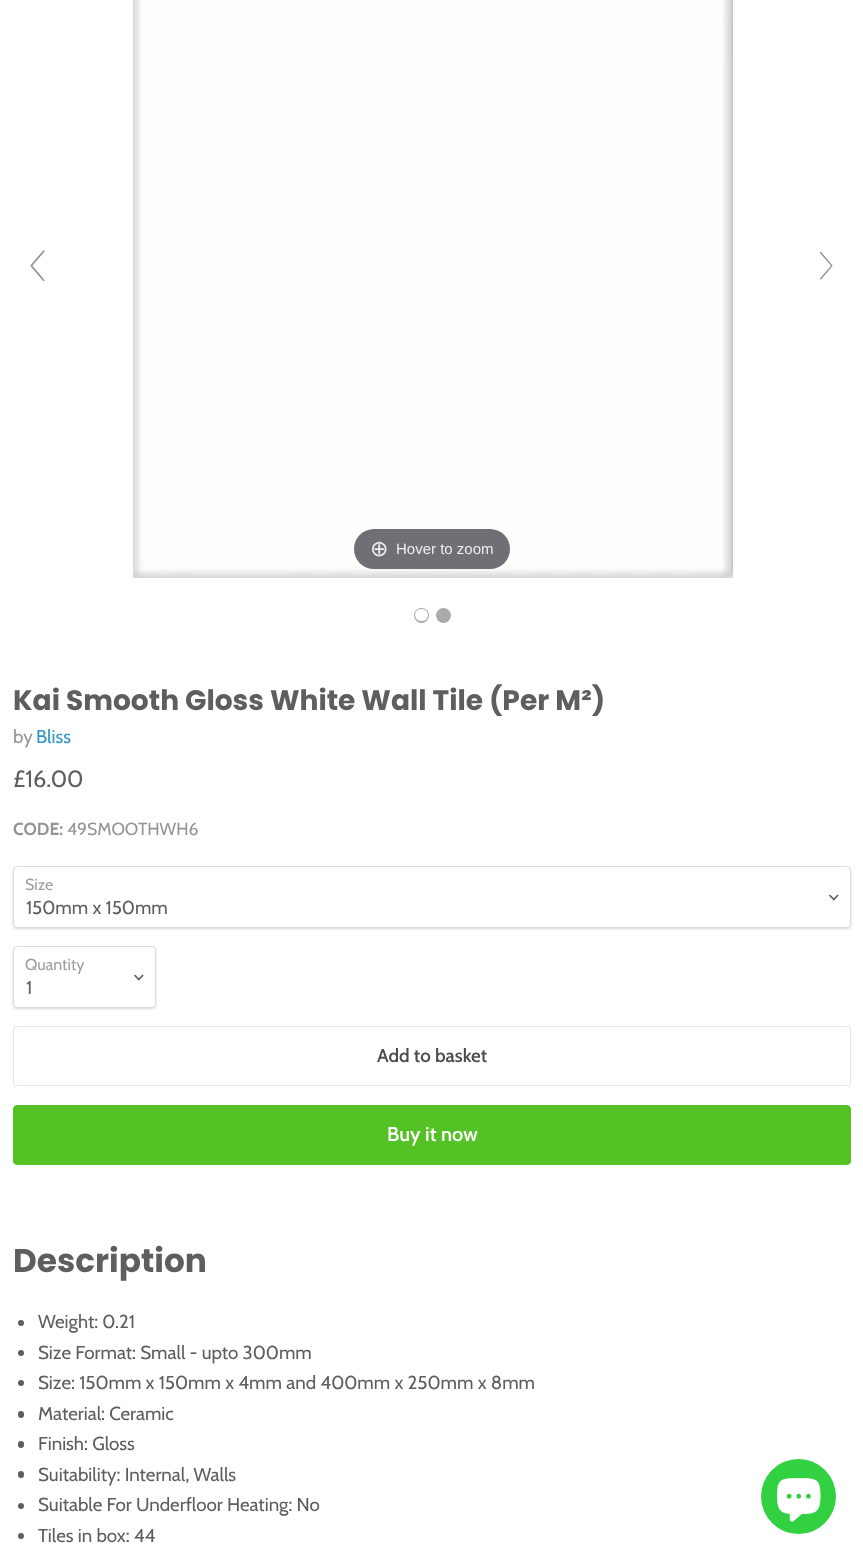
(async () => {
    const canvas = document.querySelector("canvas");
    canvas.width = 863;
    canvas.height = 1559;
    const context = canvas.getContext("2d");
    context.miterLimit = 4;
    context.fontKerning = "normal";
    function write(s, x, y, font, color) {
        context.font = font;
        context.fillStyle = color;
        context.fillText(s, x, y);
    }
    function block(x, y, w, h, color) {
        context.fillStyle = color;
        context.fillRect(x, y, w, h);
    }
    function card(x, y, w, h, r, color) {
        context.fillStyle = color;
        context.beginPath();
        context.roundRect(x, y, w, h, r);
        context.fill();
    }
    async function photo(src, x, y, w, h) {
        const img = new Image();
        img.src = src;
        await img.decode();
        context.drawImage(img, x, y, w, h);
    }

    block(0, 0, 863, 1559, "rgb(255, 255, 255)");
    await photo("media/1.png", 30, 250, 15, 32);
    await photo("media/2.png", 820, 251, 13, 29);
    await photo("media/3.png", 133, 0, 600, 578);
    card(354, 529, 156, 40, 20, "rgba(49, 51, 61, 0.7)");
    write("⊕", 370, 556, "22px DejaVu Sans", "rgb(238, 238, 238)");
    write("Hover to zoom", 396, 554, "15px Liberation Sans", "rgb(238, 238, 238)");
    context.fillStyle = "rgb(170, 170, 170)";
    context.beginPath();
    context.arc(421.5, 615.5, 7.5, 0, Math.PI * 2);
    context.fill();
    card(415, 609, 13, 12, 6, "rgb(255, 255, 255)");
    context.fillStyle = "rgb(170, 170, 170)";
    context.beginPath();
    context.arc(443.5, 615.5, 7.5, 0, Math.PI * 2);
    context.fill();
    write("Kai Smooth Gloss White Wall Tile (Per M²)", 13, 710, "bold 28.1px Poppins", "rgb(94, 94, 94)");
    write("by", 13, 743, "18.75px Cabin", "rgb(148, 148, 148)");
    write("Bliss", 36, 743, "18.75px Cabin", "rgb(50, 150, 194)");
    write("£16.00", 13, 787, "23.5px Cabin", "rgb(94, 94, 94)");
    write("CODE:", 13, 835, "bold 17.5px Cabin", "rgb(148, 148, 148)");
    write("49SMOOTHWH6", 67, 835, "17.5px Cabin", "rgb(148, 148, 148)");
    context.fillStyle = "rgba(0, 0, 0, 0.15)";
    context.filter = "blur(1px)";
    context.beginPath();
    context.roundRect(13, 868, 838, 61, 4);
    context.fill();
    context.filter = "none";
    context.fillStyle = "rgb(255, 255, 255)";
    context.beginPath();
    context.roundRect(13.5, 866.5, 837, 61, 3.5);
    context.fill();
    context.strokeStyle = "rgb(221, 221, 221)";
    context.stroke();
    write("Size", 25, 890, "16px Cabin", "rgb(158, 158, 158)");
    await photo("media/4.png", 829, 894, 10, 7);
    write("150mm x 150mm", 26, 914, "18.75px Cabin", "rgb(94, 94, 94)");
    context.fillStyle = "rgba(0, 0, 0, 0.15)";
    context.filter = "blur(1px)";
    context.beginPath();
    context.roundRect(13, 948, 143, 61, 4);
    context.fill();
    context.filter = "none";
    context.fillStyle = "rgb(255, 255, 255)";
    context.beginPath();
    context.roundRect(13.5, 946.5, 142, 61, 3.5);
    context.fill();
    context.stroke();
    write("Quantity", 25, 970, "16px Cabin", "rgb(158, 158, 158)");
    await photo("media/4.png", 134, 974, 10, 7);
    write("1", 26, 994, "18.75px Cabin", "rgb(94, 94, 94)");
    context.beginPath();
    context.roundRect(13.5, 1026.5, 837, 59, 3.5);
    context.strokeStyle = "rgb(229, 227, 227)";
    context.stroke();
    write("Add to basket", 377, 1062, "600 18.75px Cabin", "rgb(77, 77, 77)");
    context.fillStyle = "rgb(84, 193, 37)";
    context.beginPath();
    context.roundRect(13.5, 1105.5, 837, 59, 3.5);
    context.fill();
    context.strokeStyle = "rgb(84, 193, 37)";
    context.stroke();
    write("Buy it now", 387, 1141, "600 20px Cabin", "rgb(255, 255, 255)");
    write("Description", 13, 1272, "bold 32.75px Poppins", "rgb(94, 94, 94)");
    context.beginPath();
    context.arc(21, 1323, 3, 0, Math.PI * 2);
    context.fill();
    write("Weight: 0.21", 38, 1328, "18.75px Cabin", "rgb(94, 94, 94)");
    context.beginPath();
    context.arc(21, 1353, 3, 0, Math.PI * 2);
    context.fill();
    write("Size Format: Small - upto 300mm", 38, 1359, "18.75px Cabin", "rgb(94, 94, 94)");
    context.beginPath();
    context.arc(21, 1383, 3, 0, Math.PI * 2);
    context.fill();
    write("Size: 150mm x 150mm x 4mm and 400mm x 250mm x 8mm", 38, 1389, "18.75px Cabin", "rgb(94, 94, 94)");
    card(18, 1411, 6, 7, 3, "rgb(94, 94, 94)");
    write("Material: Ceramic", 38, 1420, "18.75px Cabin", "rgb(94, 94, 94)");
    card(18, 1441, 6, 7, 3, "rgb(94, 94, 94)");
    write("Finish: Gloss", 38, 1450, "18.75px Cabin", "rgb(94, 94, 94)");
    card(18, 1471, 6, 7, 3, "rgb(94, 94, 94)");
    write("Suitability: Internal, Walls", 38, 1481, "18.75px Cabin", "rgb(94, 94, 94)");
    context.beginPath();
    context.arc(21, 1506, 3, 0, Math.PI * 2);
    context.fill();
    write("Suitable For Underfloor Heating: No", 38, 1511, "18.75px Cabin", "rgb(94, 94, 94)");
    context.beginPath();
    context.arc(21, 1536, 3, 0, Math.PI * 2);
    context.fill();
    write("Tiles in box: 44", 38, 1542, "18.75px Cabin", "rgb(94, 94, 94)");
    context.fillStyle = "rgb(49, 209, 65)";
    context.beginPath();
    context.arc(798.5, 1496.5, 37.5, 0, Math.PI * 2);
    context.fill();
    await photo("media/5.png", 777, 1478, 44, 44);
})();
